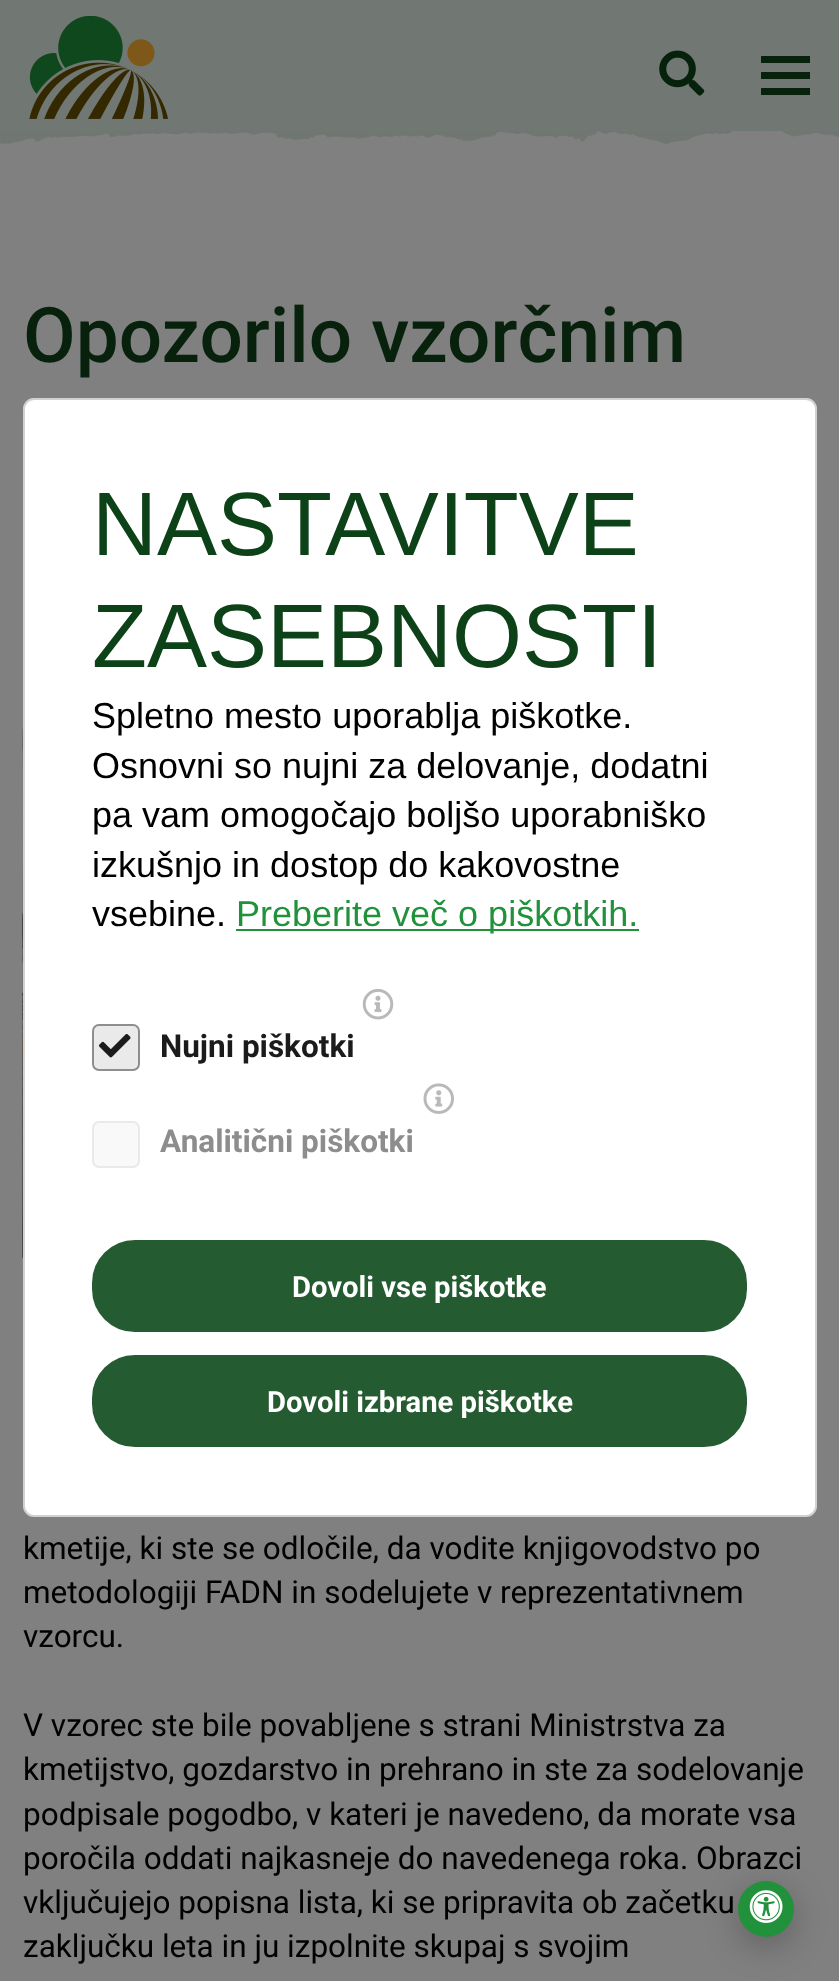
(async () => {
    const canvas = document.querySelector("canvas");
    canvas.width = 839;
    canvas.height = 1981;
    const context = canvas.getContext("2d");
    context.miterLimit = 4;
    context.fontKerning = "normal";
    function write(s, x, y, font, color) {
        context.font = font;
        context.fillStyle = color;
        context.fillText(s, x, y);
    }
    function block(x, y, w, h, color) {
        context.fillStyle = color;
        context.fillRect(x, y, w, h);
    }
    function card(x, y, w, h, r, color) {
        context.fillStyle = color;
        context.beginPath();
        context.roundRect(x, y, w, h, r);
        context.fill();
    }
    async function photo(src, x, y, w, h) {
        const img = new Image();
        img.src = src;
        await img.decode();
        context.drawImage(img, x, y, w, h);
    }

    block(0, 0, 839, 1981, "rgb(128, 128, 128)");
    block(0, 0, 839, 131, "rgb(113, 119, 114)");
    await photo("media/1.png", 29, 16, 139, 103);
    await photo("media/2.png", 659, 50, 46, 46);
    block(761, 72, 49, 7, "rgb(7, 33, 13)");
    block(761, 56, 49, 7, "rgb(7, 33, 13)");
    block(761, 88, 49, 7, "rgb(7, 33, 13)");
    await photo("media/3.png", 0, 131, 839, 13);
    write("Opozorilo vzorčnim", 23, 362, "500 76.5px Roboto", "rgb(7, 33, 13)");
    await photo("media/4.png", 22, 729, 1, 529);
    write("kmetije, ki ste se odločile, da vodite knjigovodstvo po", 23, 1559, "31.5px Roboto", "rgb(0, 0, 0)");
    write("metodologiji FADN in sodelujete v reprezentativnem", 23, 1603, "31.5px Roboto", "rgb(0, 0, 0)");
    write("vzorcu.", 23, 1647, "31.5px Roboto", "rgb(0, 0, 0)");
    write("V vzorec ste bile povabljene s strani Ministrstva za", 23, 1736, "31.5px Roboto", "rgb(0, 0, 0)");
    write("kmetijstvo, gozdarstvo in prehrano in ste za sodelovanje", 23, 1780, "31.5px Roboto", "rgb(0, 0, 0)");
    write("podpisale pogodbo, v kateri je navedeno, da morate vsa", 23, 1825, "31.5px Roboto", "rgb(0, 0, 0)");
    write("poročila oddati najkasneje do navedenega roka. Obrazci", 23, 1869, "31.5px Roboto", "rgb(0, 0, 0)");
    write("vključujejo popisna lista, ki se pripravita ob začetku", 23, 1913, "31.5px Roboto", "rgb(0, 0, 0)");
    write("zaključku leta in ju izpolnite skupaj s svojim", 23, 1957, "31.5px Roboto", "rgb(0, 0, 0)");
    card(23, 398, 794, 1119, 11, "rgb(255, 255, 255)");
    context.beginPath();
    context.roundRect(24, 399, 792, 1117, 10);
    context.strokeStyle = "rgba(0, 0, 0, 0.18)";
    context.lineWidth = 2;
    context.stroke();
    write("NASTAVITVE", 92, 555, "90px Liberation Sans", "rgb(13, 66, 25)");
    write("ZASEBNOSTI", 92, 667, "90px Liberation Sans", "rgb(13, 66, 25)");
    write("Spletno mesto uporablja piškotke.", 92, 728, "36px Liberation Sans", "rgb(0, 0, 0)");
    write("Osnovni so nujni za delovanje, dodatni", 92, 778, "36px Liberation Sans", "rgb(0, 0, 0)");
    write("pa vam omogočajo boljšo uporabniško", 92, 827, "36px Liberation Sans", "rgb(0, 0, 0)");
    write("izkušnjo in dostop do kakovostne", 92, 877, "36px Liberation Sans", "rgb(0, 0, 0)");
    write("vsebine.", 92, 926, "36px Liberation Sans", "rgb(0, 0, 0)");
    block(236, 929, 403, 2, "rgb(33, 145, 59)");
    write("Preberite več o piškotkih.", 236, 926, "36px Liberation Sans", "rgb(33, 145, 59)");
    await photo("media/5.png", 362, 989, 32, 31);
    context.fillStyle = "rgb(234, 234, 234)";
    context.beginPath();
    context.roundRect(93, 1025, 46, 45, 6);
    context.fill();
    context.strokeStyle = "rgb(142, 142, 142)";
    context.stroke();
    write("Nujni piškotki", 160, 1057, "bold 31.5px Roboto", "rgb(27, 27, 27)");
    await photo("media/6.png", 99, 1034, 32, 24);
    await photo("media/7.png", 423, 1083, 31, 31);
    context.fillStyle = "rgb(249, 249, 249)";
    context.beginPath();
    context.roundRect(93, 1122, 46, 45, 6);
    context.fill();
    context.strokeStyle = "rgb(234, 234, 234)";
    context.stroke();
    write("Analitični piškotki", 160, 1152, "bold 31.5px Roboto", "rgb(141, 141, 141)");
    context.fillStyle = "rgb(37, 91, 49)";
    context.beginPath();
    context.roundRect(94.5, 1242.5, 650, 87, 40.5);
    context.fill();
    context.strokeStyle = "rgb(37, 91, 49)";
    context.lineWidth = 5;
    context.stroke();
    write("Dovoli vse piškotke", 292, 1297, "bold 29.25px Roboto", "rgb(255, 255, 255)");
    context.fillStyle = "rgb(37, 91, 49)";
    context.beginPath();
    context.roundRect(94.5, 1357.5, 650, 87, 40.5);
    context.fill();
    context.stroke();
    write("Dovoli izbrane piškotke", 267, 1412, "bold 29.25px Roboto", "rgb(255, 255, 255)");
    context.fillStyle = "rgba(0, 0, 0, 0.25)";
    context.filter = "blur(17px)";
    context.beginPath();
    context.roundRect(738, 1890, 56, 56, 28);
    context.fill();
    context.filter = "none";
    context.fillStyle = "rgb(33, 145, 59)";
    context.beginPath();
    context.arc(766, 1909, 28, 0, Math.PI * 2);
    context.fill();
    await photo("media/8.png", 749, 1890, 34, 33);
})();
